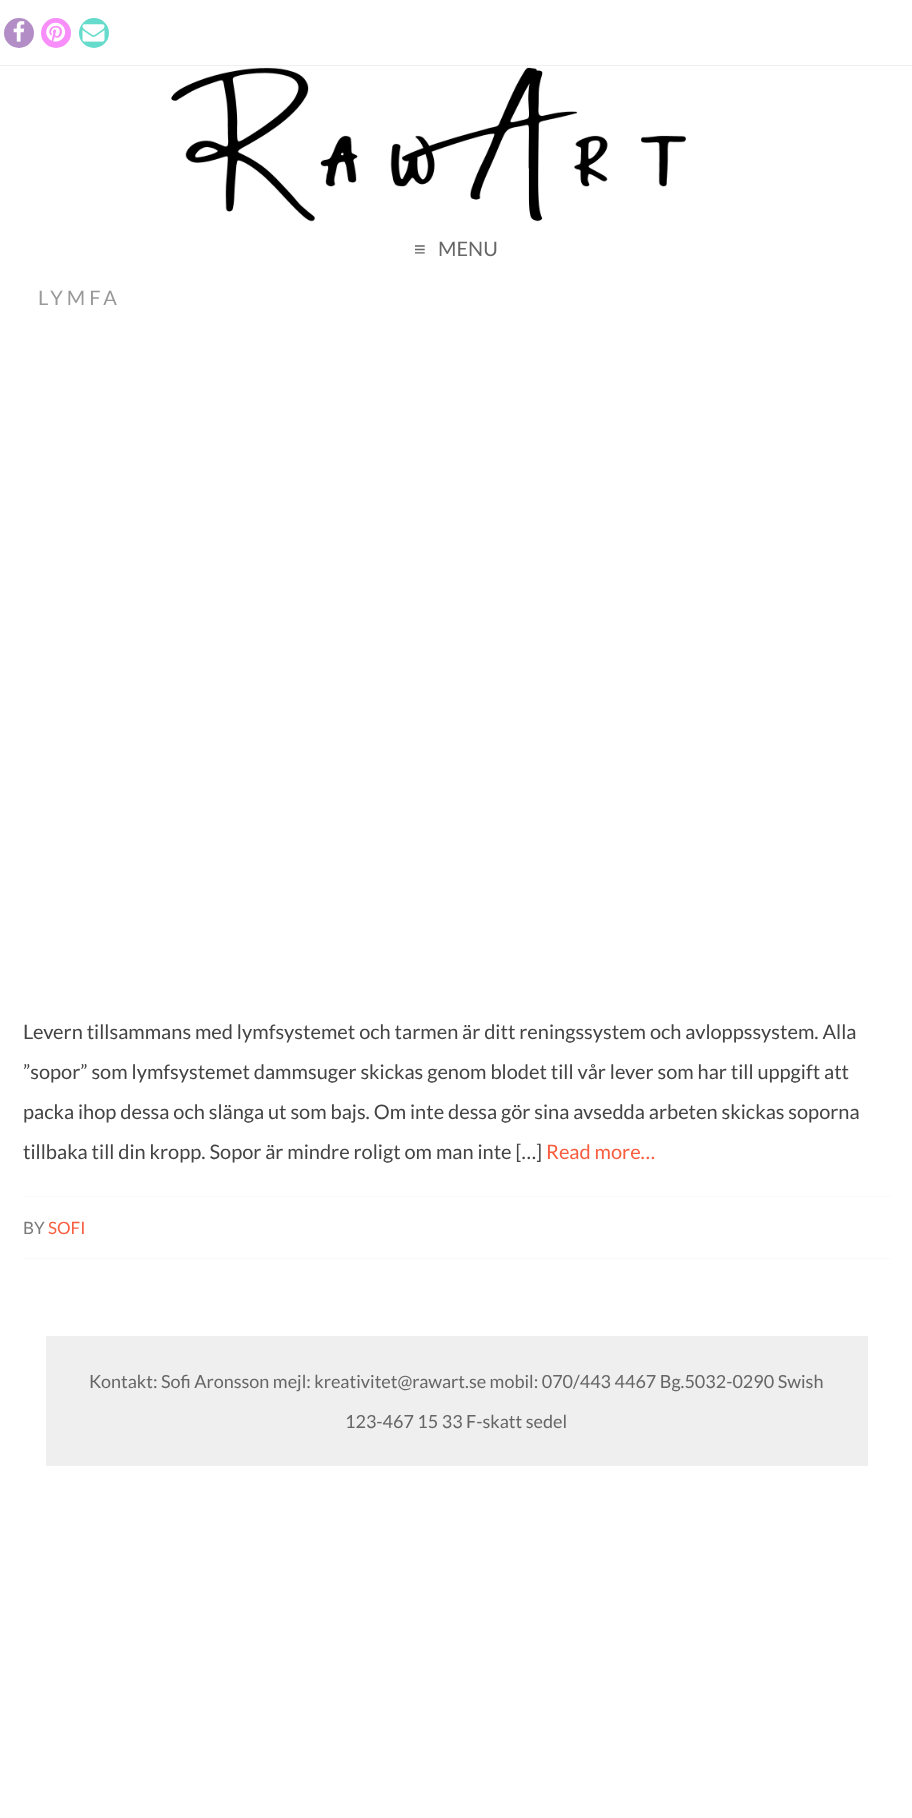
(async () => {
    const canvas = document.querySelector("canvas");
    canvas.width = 912;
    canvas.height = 1818;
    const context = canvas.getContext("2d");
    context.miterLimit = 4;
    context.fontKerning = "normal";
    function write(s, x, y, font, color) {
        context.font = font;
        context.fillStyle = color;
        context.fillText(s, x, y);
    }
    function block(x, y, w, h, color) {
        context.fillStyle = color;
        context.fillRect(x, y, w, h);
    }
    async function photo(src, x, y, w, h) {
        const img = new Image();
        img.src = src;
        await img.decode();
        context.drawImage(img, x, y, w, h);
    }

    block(0, 0, 912, 1818, "rgb(255, 255, 255)");
    block(0, 65, 912, 1, "rgb(239, 239, 239)");
    context.fillStyle = "rgb(178, 141, 198)";
    context.beginPath();
    context.arc(19, 33, 15, 0, Math.PI * 2);
    context.fill();
    await photo("media/1.png", 13, 21, 12, 21);
    context.fillStyle = "rgb(248, 142, 249)";
    context.beginPath();
    context.arc(56, 33, 15, 0, Math.PI * 2);
    context.fill();
    await photo("media/2.png", 46, 22, 20, 20);
    context.fillStyle = "rgb(100, 219, 203)";
    context.beginPath();
    context.arc(94, 33, 15, 0, Math.PI * 2);
    context.fill();
    await photo("media/3.png", 82, 24, 23, 18);
    await photo("media/4.png", 171, 67, 515, 155);
    write("≡", 414, 256, "20px Liberation Sans", "rgb(102, 102, 102)");
    write("MENU", 438, 256, "20px Lato", "rgb(102, 102, 102)");
    context.letterSpacing = "4px";
    write("LYMFA", 38, 305, "20px Lato", "rgb(153, 153, 153)");
    context.letterSpacing = "0px";
    write("Levern tillsammans med lymfsystemet och tarmen är ditt reningssystem och avloppssystem. Alla", 23, 1039, "20px Lato", "rgb(68, 68, 68)");
    write("”sopor” som lymfsystemet dammsuger skickas genom blodet till vår lever som har till uppgift att", 23, 1079, "20px Lato", "rgb(68, 68, 68)");
    write("packa ihop dessa och slänga ut som bajs. Om inte dessa gör sina avsedda arbeten skickas soporna", 23, 1119, "20px Lato", "rgb(68, 68, 68)");
    write("tillbaka till din kropp. Sopor är mindre roligt om man inte […]", 23, 1159, "20px Lato", "rgb(68, 68, 68)");
    write("Read more…", 546, 1159, "20px Lato", "rgb(247, 94, 64)");
    block(23, 1196, 867, 1, "rgb(249, 249, 249)");
    block(23, 1258, 867, 1, "rgb(249, 249, 249)");
    write("BY", 23, 1234, "17px Lato", "rgb(122, 122, 122)");
    write("SOFI", 48, 1234, "17px Lato", "rgb(247, 94, 64)");
    block(46, 1336, 822, 130, "rgb(239, 239, 239)");
    write("Kontakt: Sofi Aronsson mejl: kreativitet@rawart.se mobil: 070/443 4467 Bg.5032-0290 Swish", 89, 1388, "18px Lato", "rgb(102, 102, 102)");
    write("123-467 15 33 F-skatt sedel", 345, 1428, "18px Lato", "rgb(102, 102, 102)");
})();
